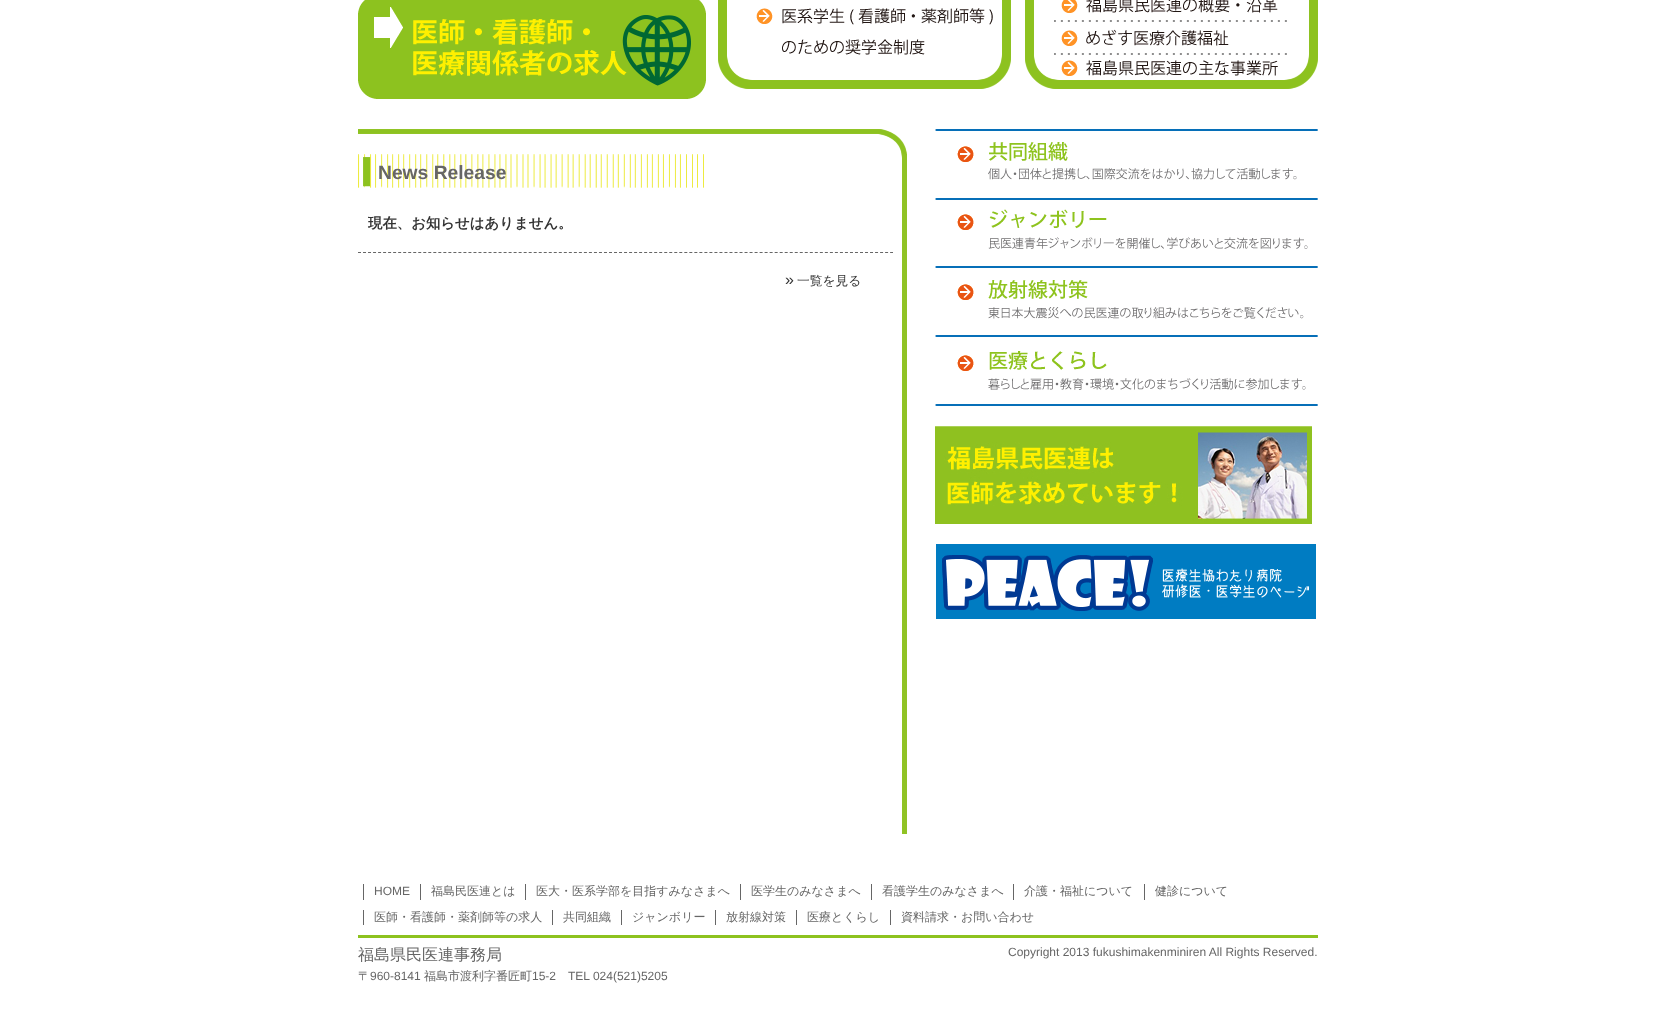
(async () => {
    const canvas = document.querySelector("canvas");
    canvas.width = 1675;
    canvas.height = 1035;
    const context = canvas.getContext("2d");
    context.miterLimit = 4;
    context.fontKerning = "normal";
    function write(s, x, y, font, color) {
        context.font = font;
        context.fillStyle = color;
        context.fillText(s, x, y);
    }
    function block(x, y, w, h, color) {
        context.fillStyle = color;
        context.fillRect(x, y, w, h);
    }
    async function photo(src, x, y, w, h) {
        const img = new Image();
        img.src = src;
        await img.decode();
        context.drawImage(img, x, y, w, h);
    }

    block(0, 0, 1675, 1035, "rgb(255, 255, 255)");
    await photo("media/1.png", 358, 0, 348, 99);
    await photo("media/2.png", 718, 0, 293, 89);
    await photo("media/3.png", 756, 8, 237, 47);
    await photo("media/2.png", 1025, 0, 293, 89);
    await photo("media/4.png", 1054, 0, 233, 22);
    await photo("media/5.png", 1054, 29, 233, 26);
    await photo("media/6.png", 1061, 60, 217, 16);
    await photo("media/7.png", 358, 129, 549, 45);
    block(902, 154, 5, 680, "rgb(144, 195, 36)");
    await photo("media/8.png", 358, 154, 346, 34);
    write("News Release", 378, 179, "bold 19.25px Liberation Sans", "rgb(102, 102, 102)");
    context.beginPath();
    context.moveTo(358, 252.5);
    context.lineTo(893, 252.5);
    context.strokeStyle = "rgb(102, 102, 102)";
    context.setLineDash([3, 2.02]);
    context.stroke();
    write("現在、お知らせはありません。", 368, 228, "bold 14.4px WenQuanYi Zen Hei", "rgb(51, 51, 51)");
    write("»", 785, 285, "16px Liberation Sans", "rgb(51, 51, 51)");
    write("一覧を見る", 797, 285, "500 12.75px WenQuanYi Zen Hei", "rgb(51, 51, 51)");
    await photo("media/9.png", 935, 129, 383, 51);
    await photo("media/10.png", 935, 198, 383, 51);
    await photo("media/11.png", 935, 266, 383, 53);
    await photo("media/12.png", 935, 335, 383, 71);
    await photo("media/13.png", 935, 426, 377, 98);
    await photo("media/14.png", 936, 544, 380, 75);
    block(358, 935, 960, 3, "rgb(141, 194, 31)");
    block(363, 884, 1, 16, "rgb(102, 102, 102)");
    write("HOME", 374, 895, "12px Liberation Sans", "rgb(102, 102, 102)");
    block(420, 884, 1, 16, "rgb(102, 102, 102)");
    write("福島民医連とは", 431, 895, "500 12px WenQuanYi Zen Hei", "rgb(102, 102, 102)");
    block(525, 884, 1, 16, "rgb(102, 102, 102)");
    write("医大・医系学部を目指すみなさまへ", 536, 895, "500 12px WenQuanYi Zen Hei", "rgb(102, 102, 102)");
    block(740, 884, 1, 16, "rgb(102, 102, 102)");
    write("医学生のみなさまへ", 751, 895, "500 12px WenQuanYi Zen Hei", "rgb(102, 102, 102)");
    block(871, 884, 1, 16, "rgb(102, 102, 102)");
    write("看護学生のみなさまへ", 882, 895, "500 12px WenQuanYi Zen Hei", "rgb(102, 102, 102)");
    block(1013, 884, 1, 16, "rgb(102, 102, 102)");
    write("介護・福祉について", 1024, 895, "500 12px WenQuanYi Zen Hei", "rgb(102, 102, 102)");
    block(1144, 884, 1, 16, "rgb(102, 102, 102)");
    write("健診について", 1155, 895, "500 12px WenQuanYi Zen Hei", "rgb(102, 102, 102)");
    block(363, 910, 1, 15, "rgb(102, 102, 102)");
    write("医師・看護師・薬剤師等の求人", 374, 921, "500 12px WenQuanYi Zen Hei", "rgb(102, 102, 102)");
    block(552, 910, 1, 15, "rgb(102, 102, 102)");
    write("共同組織", 563, 921, "500 12px WenQuanYi Zen Hei", "rgb(102, 102, 102)");
    block(621, 910, 1, 15, "rgb(102, 102, 102)");
    write("ジャンボリー", 632, 921, "500 12px WenQuanYi Zen Hei", "rgb(102, 102, 102)");
    block(715, 910, 1, 15, "rgb(102, 102, 102)");
    write("放射線対策", 726, 921, "500 12px WenQuanYi Zen Hei", "rgb(102, 102, 102)");
    block(796, 910, 1, 15, "rgb(102, 102, 102)");
    write("医療とくらし", 807, 921, "500 12px WenQuanYi Zen Hei", "rgb(102, 102, 102)");
    block(890, 910, 1, 15, "rgb(102, 102, 102)");
    write("資料請求・お問い合わせ", 901, 921, "500 12px WenQuanYi Zen Hei", "rgb(102, 102, 102)");
    write("福島県民医連事務局", 358, 960, "500 16px WenQuanYi Zen Hei", "rgb(102, 102, 102)");
    write("〒", 358, 980, "500 12px WenQuanYi Zen Hei", "rgb(102, 102, 102)");
    write("960-8141", 370, 980, "12px Liberation Sans", "rgb(102, 102, 102)");
    write("福島市渡利字番匠町", 424, 980, "500 12px WenQuanYi Zen Hei", "rgb(102, 102, 102)");
    write("15-2", 532, 980, "12px Liberation Sans", "rgb(102, 102, 102)");
    write("TEL 024(521)5205", 568, 980, "12px Liberation Sans", "rgb(102, 102, 102)");
    write("Copyright 2013 fukushimakenminiren All Rights Reserved.", 1008, 956, "12px Liberation Sans", "rgb(102, 102, 102)");
})();
